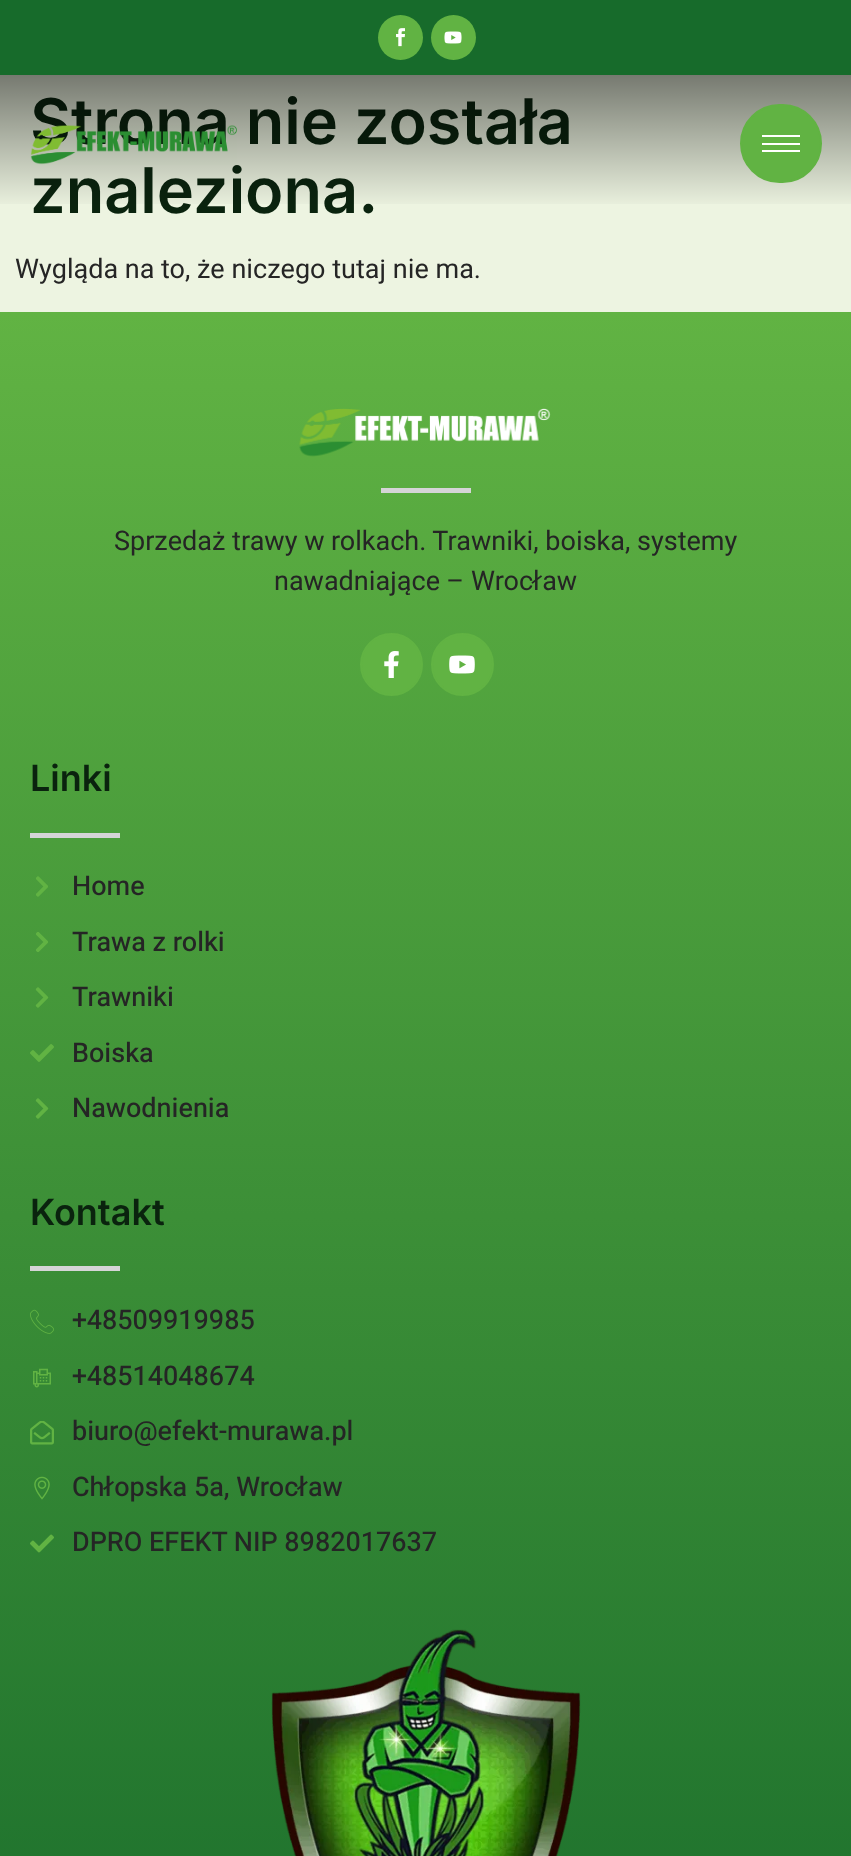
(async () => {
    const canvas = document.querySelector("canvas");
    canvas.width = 851;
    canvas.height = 1856;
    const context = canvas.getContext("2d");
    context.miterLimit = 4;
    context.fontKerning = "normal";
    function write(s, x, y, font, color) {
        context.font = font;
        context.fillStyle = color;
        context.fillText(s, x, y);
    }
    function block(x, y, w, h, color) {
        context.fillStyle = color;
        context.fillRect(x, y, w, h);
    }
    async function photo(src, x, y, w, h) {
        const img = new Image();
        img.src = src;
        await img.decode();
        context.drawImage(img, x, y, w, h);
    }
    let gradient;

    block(0, 0, 851, 1856, "rgb(237, 244, 225)");
    block(0, 0, 851, 75, "rgb(23, 107, 43)");
    context.fillStyle = "rgb(97, 179, 67)";
    context.beginPath();
    context.arc(400.5, 37.5, 22.5, 0, Math.PI * 2);
    context.fill();
    await photo("media/1.png", 396, 28, 9, 19);
    context.beginPath();
    context.arc(453.5, 37.5, 22.5, 0, Math.PI * 2);
    context.fill();
    await photo("media/2.png", 444, 31, 18, 13);
    write("Strona nie została", 30, 144, "600 63px Inter", "rgb(10, 35, 14)");
    write("znaleziona.", 30, 213, "600 63px Inter", "rgb(10, 35, 14)");
    gradient = context.createLinearGradient(426, 75, 426, 210);
    gradient.addColorStop(0, "rgba(0, 0, 0, 0.5)");
    gradient.addColorStop(1, "rgba(0, 0, 0, 0)");
    context.fillStyle = gradient;
    context.fillRect(0, 75, 851, 129);
    await photo("media/3.png", 30, 125, 207, 40);
    context.fillStyle = "rgb(97, 179, 67)";
    context.beginPath();
    context.roundRect(741, 105, 80, 77, 38.5);
    context.fill();
    context.strokeStyle = "rgb(97, 179, 67)";
    context.lineWidth = 2;
    context.stroke();
    block(762, 135, 38, 2, "rgb(255, 255, 255)");
    block(762, 143, 38, 2, "rgb(255, 255, 255)");
    block(762, 150, 38, 2, "rgb(255, 255, 255)");
    write("Wygląda na to, że niczego tutaj nie ma.", 15, 278, "27px Heebo", "rgb(37, 37, 37)");
    gradient = context.createLinearGradient(426, 312, 426, 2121);
    gradient.addColorStop(0, "rgb(97, 179, 67)");
    gradient.addColorStop(1, "rgb(23, 107, 43)");
    context.fillStyle = gradient;
    context.fillRect(0, 312, 851, 1544);
    await photo("media/4.png", 299, 408, 252, 49);
    block(381, 488, 90, 5, "rgb(213, 213, 215)");
    write("Sprzedaż trawy w rolkach. Trawniki, boiska, systemy", 114, 550, "27px Heebo", "rgb(37, 37, 37)");
    write("nawadniające – Wrocław", 274, 590, "27px Heebo", "rgb(37, 37, 37)");
    context.fillStyle = "rgb(97, 179, 67)";
    context.beginPath();
    context.arc(391.5, 664.5, 30.5, 0, Math.PI * 2);
    context.fill();
    context.stroke();
    await photo("media/5.png", 384, 651, 15, 27);
    context.beginPath();
    context.arc(462.5, 664.5, 30.5, 0, Math.PI * 2);
    context.fill();
    context.stroke();
    await photo("media/6.png", 449, 655, 26, 19);
    write("Linki", 30, 791, "600 36px Inter", "rgb(10, 35, 14)");
    block(30, 833, 90, 5, "rgb(213, 213, 215)");
    await photo("media/7.png", 36, 876, 12, 21);
    write("Home", 72, 895, "500 27px Heebo", "rgb(37, 37, 37)");
    await photo("media/8.png", 36, 932, 12, 20);
    write("Trawa z rolki", 72, 951, "500 27px Heebo", "rgb(37, 37, 37)");
    await photo("media/9.png", 35, 987, 14, 21);
    write("Trawniki", 72, 1006, "500 27px Heebo", "rgb(37, 37, 37)");
    await photo("media/10.png", 30, 1044, 24, 18);
    write("Boiska", 72, 1062, "500 27px Heebo", "rgb(37, 37, 37)");
    await photo("media/11.png", 35, 1098, 14, 21);
    write("Nawodnienia", 72, 1117, "500 27px Heebo", "rgb(37, 37, 37)");
    write("Kontakt", 30, 1225, "600 36px Inter", "rgb(10, 35, 14)");
    block(30, 1266, 90, 5, "rgb(213, 213, 215)");
    await photo("media/12.png", 30, 1309, 24, 25);
    write("+48509919985", 72, 1329, "500 27px Heebo", "rgb(37, 37, 37)");
    await photo("media/13.png", 33, 1368, 18, 20);
    write("+48514048674", 72, 1385, "500 27px Heebo", "rgb(37, 37, 37)");
    await photo("media/14.png", 30, 1421, 24, 24);
    write("biuro@efekt-murawa.pl", 72, 1440, "500 27px Heebo", "rgb(37, 37, 37)");
    await photo("media/15.png", 34, 1476, 16, 24);
    write("Chłopska 5a, Wrocław", 72, 1496, "500 27px Heebo", "rgb(37, 37, 37)");
    await photo("media/16.png", 30, 1534, 24, 19);
    write("DPRO EFEKT NIP 8982017637", 72, 1551, "500 27px Heebo", "rgb(37, 37, 37)");
    await photo("media/17.png", 271, 1629, 310, 227);
})();
